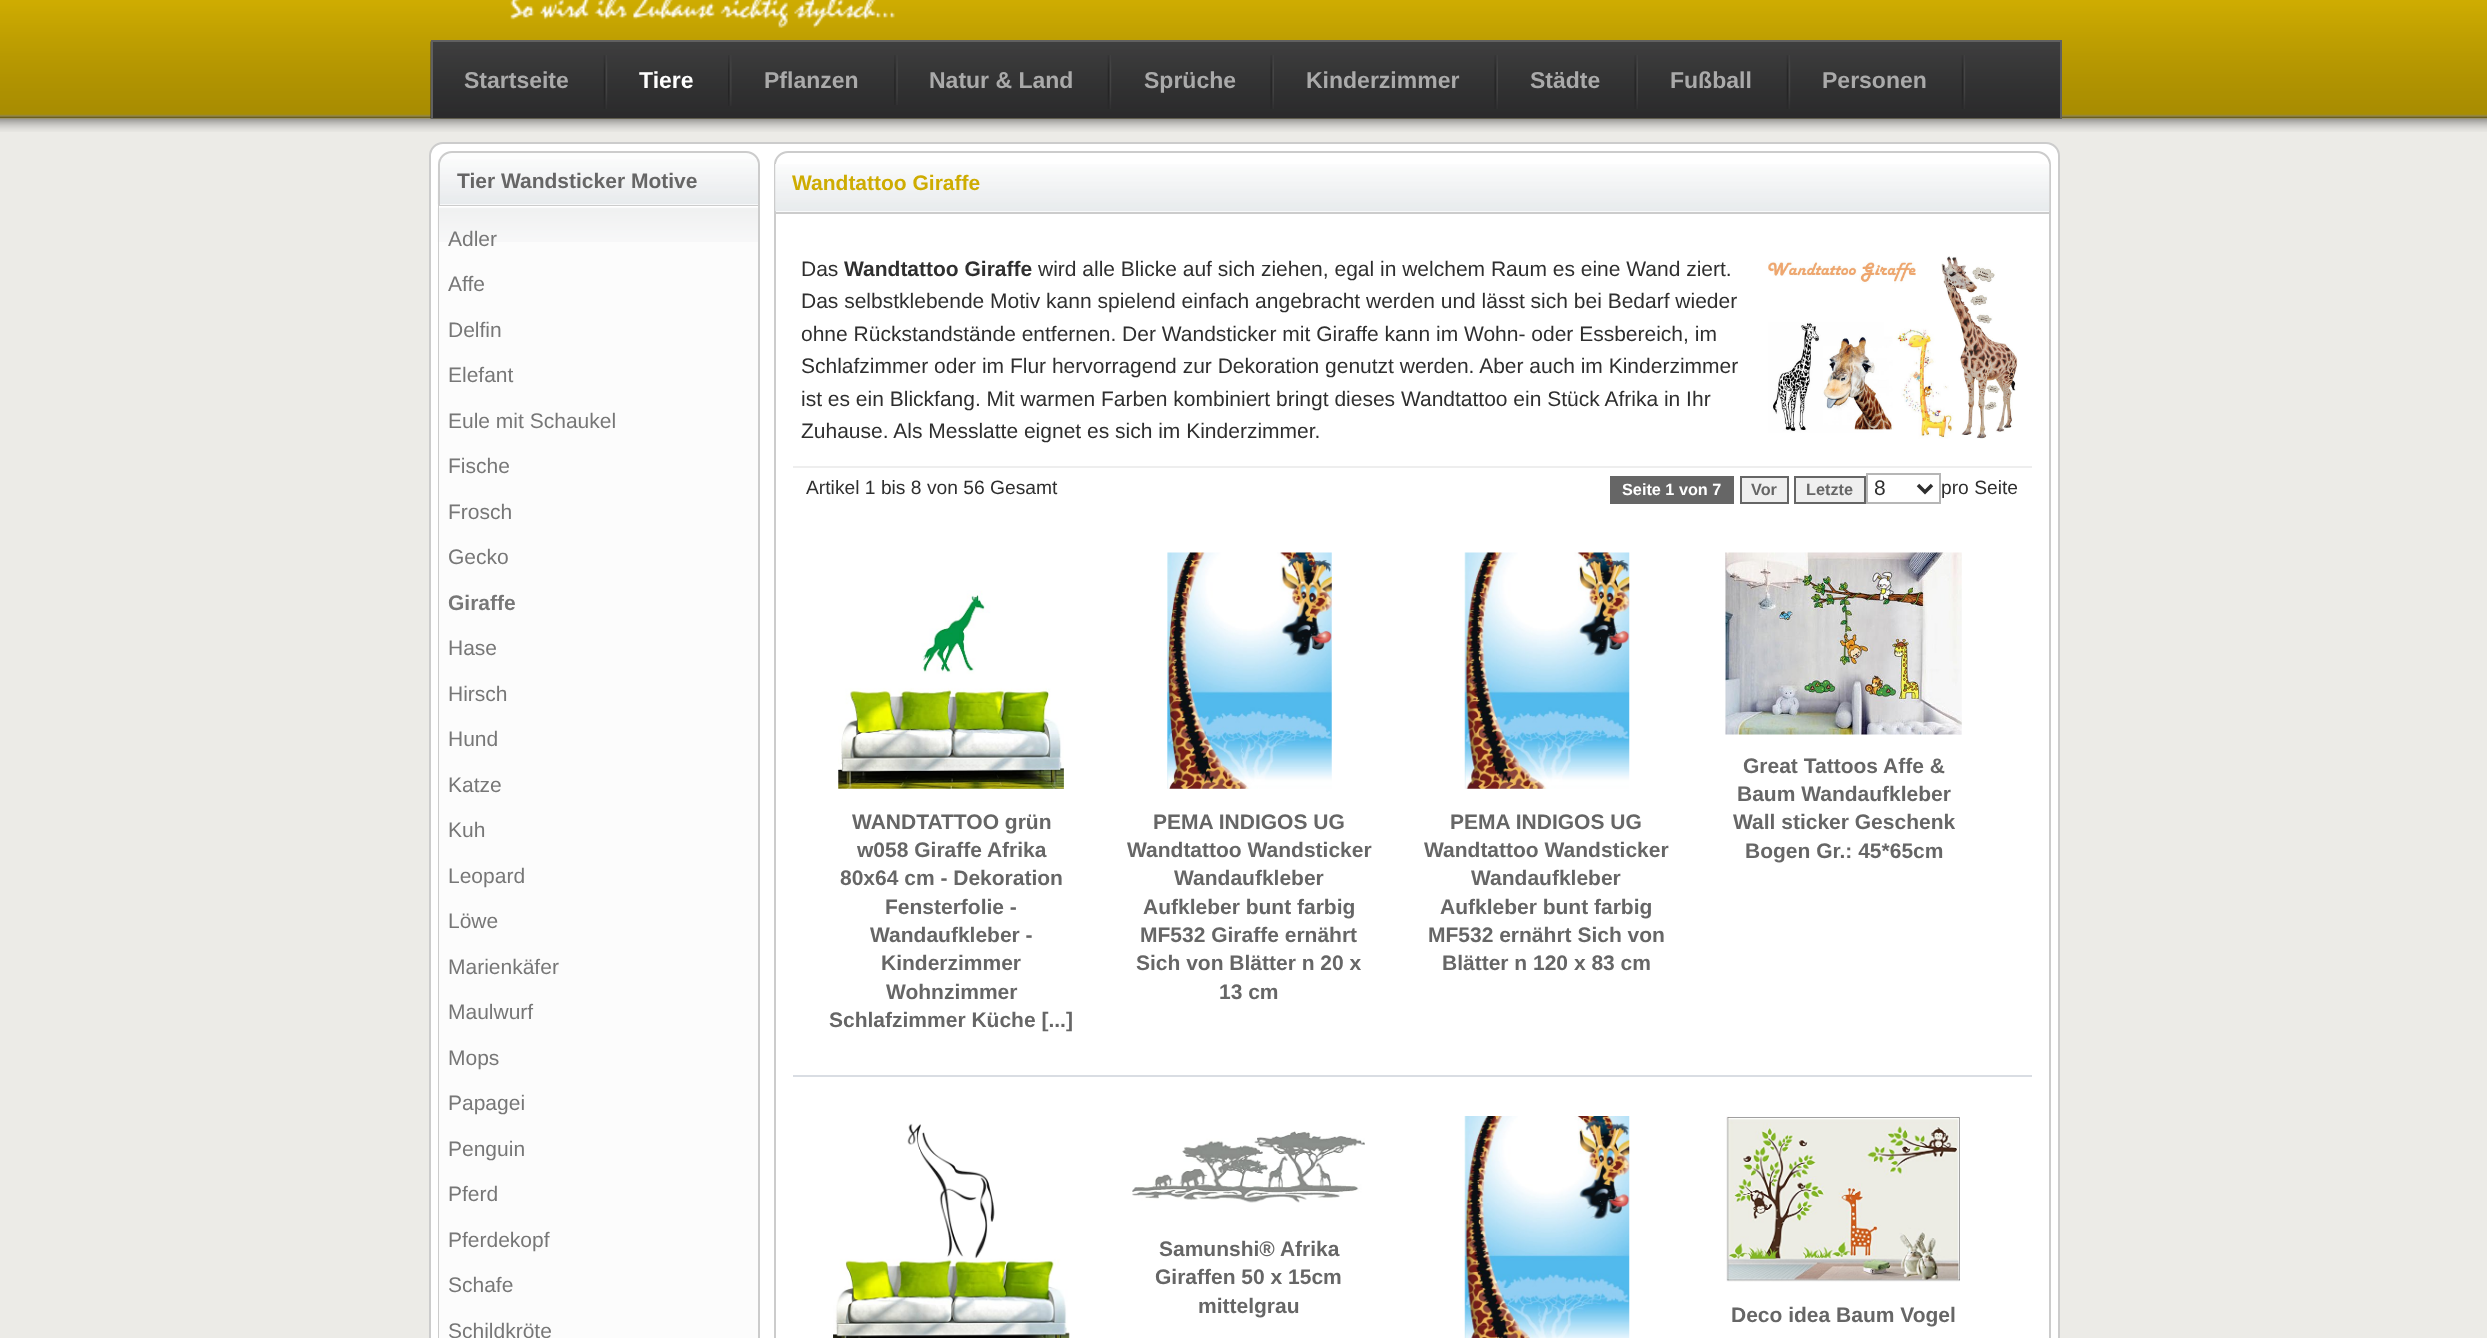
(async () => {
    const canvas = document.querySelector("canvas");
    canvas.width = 2487;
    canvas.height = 1338;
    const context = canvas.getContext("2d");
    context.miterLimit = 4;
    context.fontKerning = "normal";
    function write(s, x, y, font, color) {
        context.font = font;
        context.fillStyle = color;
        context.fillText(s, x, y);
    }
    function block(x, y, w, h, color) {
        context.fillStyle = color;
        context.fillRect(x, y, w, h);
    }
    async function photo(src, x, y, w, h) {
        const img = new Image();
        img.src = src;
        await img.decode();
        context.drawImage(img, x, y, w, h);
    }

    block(0, 0, 2487, 1338, "rgb(255, 255, 255)");
    await photo("media/9.png", 0, 118, 2487, 14);
    await photo("media/1.png", 0, 0, 2487, 119);
    await photo("media/2.png", 510, 0, 385, 28);
    await photo("media/3.png", 430, 41, 1630, 78);
    block(431, 40, 1631, 2, "rgb(96, 96, 96)");
    block(2060, 40, 2, 79, "rgb(96, 96, 96)");
    block(431, 40, 2, 79, "rgb(96, 96, 96)");
    await photo("media/4.png", 603, 55, 5, 54);
    write("Startseite", 464, 88, "bold 23px Liberation Sans", "rgb(170, 170, 170)");
    await photo("media/5.png", 728, 55, 4, 51);
    write("Tiere", 639, 88, "bold 23px Liberation Sans", "rgb(255, 255, 255)");
    await photo("media/6.png", 894, 55, 4, 50);
    write("Pflanzen", 764, 88, "bold 23px Liberation Sans", "rgb(170, 170, 170)");
    await photo("media/7.png", 1107, 55, 5, 54);
    write("Natur & Land", 929, 88, "bold 23px Liberation Sans", "rgb(170, 170, 170)");
    await photo("media/8.png", 1270, 55, 4, 54);
    write("Sprüche", 1144, 88, "bold 23px Liberation Sans", "rgb(170, 170, 170)");
    await photo("media/8.png", 1494, 55, 4, 54);
    write("Kinderzimmer", 1306, 88, "bold 23px Liberation Sans", "rgb(170, 170, 170)");
    await photo("media/8.png", 1634, 55, 4, 54);
    write("Städte", 1530, 88, "bold 23px Liberation Sans", "rgb(170, 170, 170)");
    await photo("media/4.png", 1786, 55, 5, 54);
    write("Fußball", 1670, 88, "bold 23px Liberation Sans", "rgb(170, 170, 170)");
    await photo("media/7.png", 1961, 55, 5, 54);
    write("Personen", 1822, 88, "bold 23px Liberation Sans", "rgb(170, 170, 170)");
    block(0, 132, 2487, 1206, "rgb(236, 235, 231)");
    context.fillStyle = "rgb(255, 255, 255)";
    context.beginPath();
    context.roundRect(430, 143, 1629, 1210, 13);
    context.fill();
    context.strokeStyle = "rgb(204, 204, 204)";
    context.lineWidth = 2;
    context.stroke();
    context.fillStyle = "rgb(252, 253, 253)";
    context.beginPath();
    context.roundRect(438, 151, 322, 56, [14, 14, 0, 0]);
    context.fill();
    await photo("media/10.png", 437, 159, 323, 46);
    context.beginPath();
    context.roundRect(439, 152, 320, 54, [13, 13, 0, 0]);
    context.stroke();
    write("Tier Wandsticker Motive", 457, 188, "bold 21px Liberation Sans", "rgb(102, 102, 102)");
    block(439, 242, 319, 1096, "rgb(252, 252, 252)");
    await photo("media/11.png", 437, 206, 321, 36);
    context.fillStyle = "rgb(204, 204, 204)";
    context.beginPath();
    context.moveTo(438, 206);
    context.lineTo(760, 206);
    context.lineTo(760, 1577);
    context.bezierCurveTo(760, 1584, 753, 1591, 746, 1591);
    context.lineTo(452, 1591);
    context.bezierCurveTo(444, 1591, 438, 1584, 438, 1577);
    context.closePath();
    context.moveTo(439, 206);
    context.lineTo(758, 206);
    context.lineTo(758, 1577);
    context.bezierCurveTo(758, 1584, 752, 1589, 746, 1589);
    context.lineTo(452, 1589);
    context.bezierCurveTo(445, 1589, 439, 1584, 439, 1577);
    context.closePath();
    context.fill("evenodd");
    write("Adler", 448, 246, "21px Liberation Sans", "rgb(119, 119, 119)");
    write("Affe", 448, 291, "21px Liberation Sans", "rgb(119, 119, 119)");
    write("Delfin", 448, 337, "21px Liberation Sans", "rgb(119, 119, 119)");
    write("Elefant", 448, 382, "21px Liberation Sans", "rgb(119, 119, 119)");
    write("Eule mit Schaukel", 448, 428, "21px Liberation Sans", "rgb(119, 119, 119)");
    write("Fische", 448, 473, "21px Liberation Sans", "rgb(119, 119, 119)");
    write("Frosch", 448, 519, "21px Liberation Sans", "rgb(119, 119, 119)");
    write("Gecko", 448, 564, "21px Liberation Sans", "rgb(119, 119, 119)");
    write("Giraffe", 448, 610, "bold 21px Liberation Sans", "rgb(119, 119, 119)");
    write("Hase", 448, 655, "21px Liberation Sans", "rgb(119, 119, 119)");
    write("Hirsch", 448, 701, "21px Liberation Sans", "rgb(119, 119, 119)");
    write("Hund", 448, 746, "21px Liberation Sans", "rgb(119, 119, 119)");
    write("Katze", 448, 792, "21px Liberation Sans", "rgb(119, 119, 119)");
    write("Kuh", 448, 837, "21px Liberation Sans", "rgb(119, 119, 119)");
    write("Leopard", 448, 883, "21px Liberation Sans", "rgb(119, 119, 119)");
    write("Löwe", 448, 928, "21px Liberation Sans", "rgb(119, 119, 119)");
    write("Marienkäfer", 448, 974, "21px Liberation Sans", "rgb(119, 119, 119)");
    write("Maulwurf", 448, 1019, "21px Liberation Sans", "rgb(119, 119, 119)");
    write("Mops", 448, 1065, "21px Liberation Sans", "rgb(119, 119, 119)");
    write("Papagei", 448, 1110, "21px Liberation Sans", "rgb(119, 119, 119)");
    write("Penguin", 448, 1156, "21px Liberation Sans", "rgb(119, 119, 119)");
    write("Pferd", 448, 1201, "21px Liberation Sans", "rgb(119, 119, 119)");
    write("Pferdekopf", 448, 1247, "21px Liberation Sans", "rgb(119, 119, 119)");
    write("Schafe", 448, 1292, "21px Liberation Sans", "rgb(119, 119, 119)");
    write("Schildkröte", 448, 1338, "21px Liberation Sans", "rgb(119, 119, 119)");
    context.beginPath();
    context.roundRect(775, 152, 1275, 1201, 13);
    context.stroke();
    await photo("media/12.png", 775, 164, 1275, 48);
    block(775, 212, 1274, 2, "rgb(204, 204, 204)");
    write("Wandtattoo Giraffe", 792, 190, "bold 21px Liberation Sans", "rgb(206, 172, 1)");
    write("Das", 801, 276, "21px Liberation Sans", "rgb(47, 47, 47)");
    write("Wandtattoo Giraffe", 844, 276, "bold 21px Liberation Sans", "rgb(47, 47, 47)");
    write("wird alle Blicke auf sich ziehen, egal in welchem Raum es eine Wand ziert.", 1038, 276, "21px Liberation Sans", "rgb(47, 47, 47)");
    await photo("media/13.png", 1768, 256, 250, 183);
    write("Das selbstklebende Motiv kann spielend einfach angebracht werden und lässt sich bei Bedarf wieder", 801, 308, "21px Liberation Sans", "rgb(47, 47, 47)");
    write("ohne Rückstandstände entfernen. Der Wandsticker mit Giraffe kann im Wohn- oder Essbereich, im", 801, 341, "21px Liberation Sans", "rgb(47, 47, 47)");
    write("Schlafzimmer oder im Flur hervorragend zur Dekoration genutzt werden. Aber auch im Kinderzimmer", 801, 373, "21px Liberation Sans", "rgb(47, 47, 47)");
    write("ist es ein Blickfang. Mit warmen Farben kombiniert bringt dieses Wandtattoo ein Stück Afrika in Ihr", 801, 406, "21px Liberation Sans", "rgb(47, 47, 47)");
    write("Zuhause. Als Messlatte eignet es sich im Kinderzimmer.", 801, 438, "21px Liberation Sans", "rgb(47, 47, 47)");
    block(793, 466, 1239, 2, "rgb(238, 238, 238)");
    write("Artikel 1 bis 8 von 56 Gesamt", 806, 494, "19.25px Liberation Sans", "rgb(47, 47, 47)");
    block(1610, 476, 124, 28, "rgb(102, 102, 102)");
    write("Seite 1 von 7", 1622, 495, "bold 16.25px Liberation Sans", "rgb(255, 255, 255)");
    context.fillStyle = "rgb(239, 239, 239)";
    context.beginPath();
    context.rect(1741, 477, 47, 26);
    context.fill();
    context.strokeStyle = "rgb(102, 102, 102)";
    context.stroke();
    write("Vor", 1751, 495, "bold 16.25px Liberation Sans", "rgb(102, 102, 102)");
    context.fillStyle = "rgb(239, 239, 239)";
    context.beginPath();
    context.rect(1795, 477, 70, 26);
    context.fill();
    context.stroke();
    write("Letzte", 1806, 495, "bold 16.25px Liberation Sans", "rgb(102, 102, 102)");
    context.strokeStyle = "rgb(182, 182, 182)";
    context.strokeRect(1867, 474, 73, 29);
    context.beginPath();
    context.moveTo(1918, 485);
    context.lineTo(1925, 492);
    context.lineTo(1932, 485);
    context.strokeStyle = "rgb(47, 47, 47)";
    context.lineWidth = 3.5;
    context.stroke();
    write("8", 1874, 495, "21px Liberation Sans", "rgb(47, 47, 47)");
    write("pro Seite", 1941, 494, "19.25px Liberation Sans", "rgb(47, 47, 47)");
    block(793, 1075, 1239, 2, "rgb(217, 221, 227)");
    await photo("media/14.png", 838, 590, 226, 199);
    write("WANDTATTOO grün", 852, 829, "bold 21px Liberation Sans", "rgb(102, 102, 102)");
    write("w058 Giraffe Afrika", 857, 857, "bold 21px Liberation Sans", "rgb(102, 102, 102)");
    write("80x64 cm - Dekoration", 840, 885, "bold 21px Liberation Sans", "rgb(102, 102, 102)");
    write("Fensterfolie -", 885, 914, "bold 21px Liberation Sans", "rgb(102, 102, 102)");
    write("Wandaufkleber -", 870, 942, "bold 21px Liberation Sans", "rgb(102, 102, 102)");
    write("Kinderzimmer", 881, 970, "bold 21px Liberation Sans", "rgb(102, 102, 102)");
    write("Wohnzimmer", 886, 999, "bold 21px Liberation Sans", "rgb(102, 102, 102)");
    write("Schlafzimmer Küche [...]", 829, 1027, "bold 21px Liberation Sans", "rgb(102, 102, 102)");
    await photo("media/15.png", 1167, 552, 165, 237);
    write("PEMA INDIGOS UG", 1153, 829, "bold 21px Liberation Sans", "rgb(102, 102, 102)");
    write("Wandtattoo Wandsticker", 1127, 857, "bold 21px Liberation Sans", "rgb(102, 102, 102)");
    write("Wandaufkleber", 1174, 885, "bold 21px Liberation Sans", "rgb(102, 102, 102)");
    write("Aufkleber bunt farbig", 1143, 914, "bold 21px Liberation Sans", "rgb(102, 102, 102)");
    write("MF532 Giraffe ernährt", 1140, 942, "bold 21px Liberation Sans", "rgb(102, 102, 102)");
    write("Sich von Blätter n 20 x", 1136, 970, "bold 21px Liberation Sans", "rgb(102, 102, 102)");
    write("13 cm", 1219, 999, "bold 21px Liberation Sans", "rgb(102, 102, 102)");
    await photo("media/16.png", 1464, 552, 166, 237);
    write("PEMA INDIGOS UG", 1450, 829, "bold 21px Liberation Sans", "rgb(102, 102, 102)");
    write("Wandtattoo Wandsticker", 1424, 857, "bold 21px Liberation Sans", "rgb(102, 102, 102)");
    write("Wandaufkleber", 1471, 885, "bold 21px Liberation Sans", "rgb(102, 102, 102)");
    write("Aufkleber bunt farbig", 1440, 914, "bold 21px Liberation Sans", "rgb(102, 102, 102)");
    write("MF532 ernährt Sich von", 1428, 942, "bold 21px Liberation Sans", "rgb(102, 102, 102)");
    write("Blätter n 120 x 83 cm", 1442, 970, "bold 21px Liberation Sans", "rgb(102, 102, 102)");
    await photo("media/17.png", 1725, 552, 237, 183);
    write("Great Tattoos Affe &", 1743, 773, "bold 21px Liberation Sans", "rgb(102, 102, 102)");
    write("Baum Wandaufkleber", 1737, 801, "bold 21px Liberation Sans", "rgb(102, 102, 102)");
    write("Wall sticker Geschenk", 1733, 829, "bold 21px Liberation Sans", "rgb(102, 102, 102)");
    write("Bogen Gr.: 45*65cm", 1745, 858, "bold 21px Liberation Sans", "rgb(102, 102, 102)");
    await photo("media/18.png", 833, 1123, 237, 215);
    await photo("media/19.png", 1132, 1131, 233, 72);
    write("Samunshi® Afrika", 1159, 1256, "bold 21px Liberation Sans", "rgb(102, 102, 102)");
    write("Giraffen 50 x 15cm", 1155, 1284, "bold 21px Liberation Sans", "rgb(102, 102, 102)");
    write("mittelgrau", 1198, 1313, "bold 21px Liberation Sans", "rgb(102, 102, 102)");
    await photo("media/20.png", 1464, 1116, 166, 222);
    await photo("media/21.png", 1726, 1116, 234, 166);
    write("Deco idea Baum Vogel", 1731, 1322, "bold 21px Liberation Sans", "rgb(102, 102, 102)");
})();
